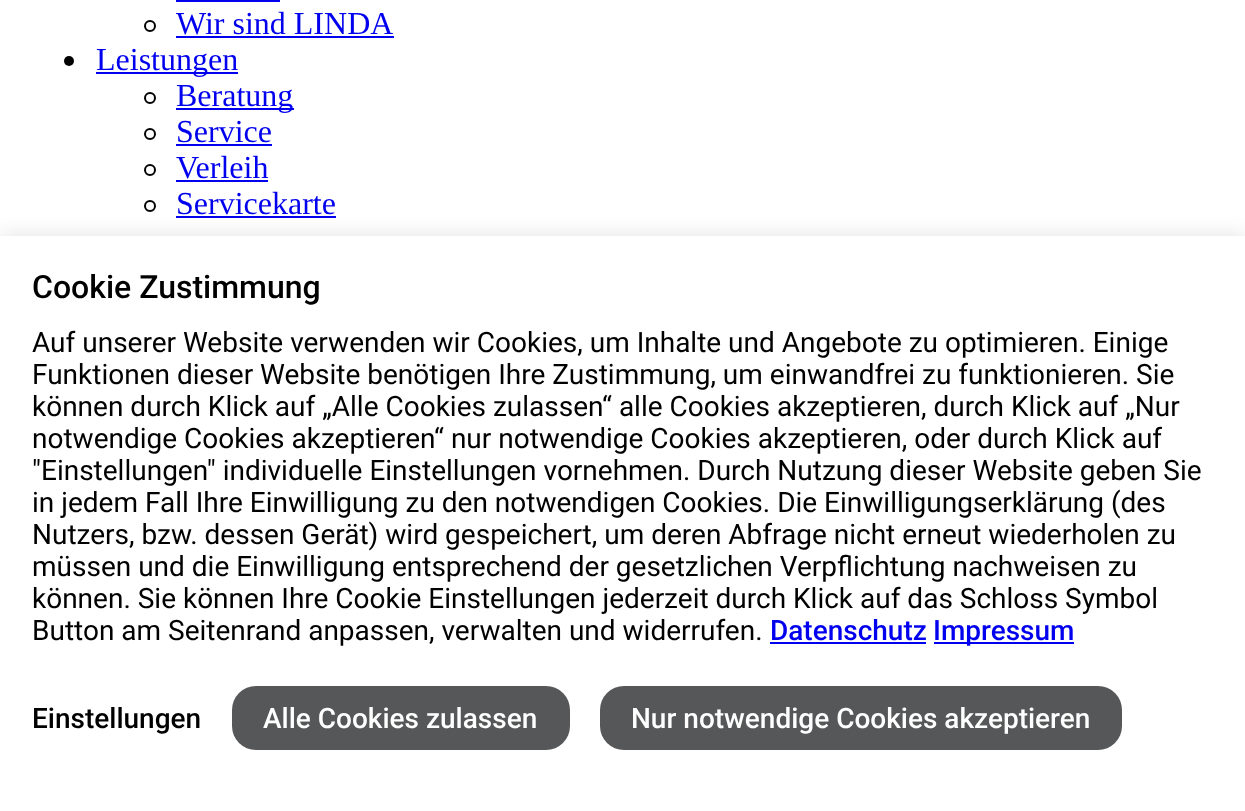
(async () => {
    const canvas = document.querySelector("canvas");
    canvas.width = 1245;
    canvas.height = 811;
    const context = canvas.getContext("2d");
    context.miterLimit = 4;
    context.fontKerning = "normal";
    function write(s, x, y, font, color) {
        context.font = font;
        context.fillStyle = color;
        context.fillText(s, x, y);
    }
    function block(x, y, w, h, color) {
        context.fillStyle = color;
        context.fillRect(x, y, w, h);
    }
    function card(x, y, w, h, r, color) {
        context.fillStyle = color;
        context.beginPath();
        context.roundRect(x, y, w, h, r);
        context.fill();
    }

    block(0, 0, 1245, 811, "rgb(255, 255, 255)");
    block(176, 0, 104, 2, "rgb(0, 0, 238)");
    context.beginPath();
    context.arc(150, 26, 5, 0, Math.PI * 2);
    context.strokeStyle = "rgb(0, 0, 0)";
    context.lineWidth = 2;
    context.stroke();
    write("Wir sind LINDA", 176, 34, "32px Liberation Serif", "rgb(0, 0, 238)");
    block(176, 36, 218, 2, "rgb(0, 0, 238)");
    context.fillStyle = "rgb(0, 0, 0)";
    context.beginPath();
    context.arc(69, 61, 5, 0, Math.PI * 2);
    context.fill();
    block(96, 72, 142, 2, "rgb(0, 0, 238)");
    write("Leistungen", 96, 70, "32px Liberation Serif", "rgb(0, 0, 238)");
    context.beginPath();
    context.arc(150, 98, 5, 0, Math.PI * 2);
    context.stroke();
    block(176, 108, 118, 2, "rgb(0, 0, 238)");
    write("Beratung", 176, 106, "32px Liberation Serif", "rgb(0, 0, 238)");
    context.beginPath();
    context.arc(150, 134, 5, 0, Math.PI * 2);
    context.stroke();
    write("Service", 176, 142, "32px Liberation Serif", "rgb(0, 0, 238)");
    block(176, 144, 96, 2, "rgb(0, 0, 238)");
    context.beginPath();
    context.arc(150, 170, 5, 0, Math.PI * 2);
    context.stroke();
    write("Verleih", 176, 178, "32px Liberation Serif", "rgb(0, 0, 238)");
    block(176, 180, 92, 2, "rgb(0, 0, 238)");
    context.beginPath();
    context.arc(150, 206, 5, 0, Math.PI * 2);
    context.stroke();
    write("Servicekarte", 176, 214, "32px Liberation Serif", "rgb(0, 0, 238)");
    block(176, 216, 160, 2, "rgb(0, 0, 238)");
    context.fillStyle = "rgba(172, 171, 171, 0.3)";
    context.filter = "blur(10px)";
    context.beginPath();
    context.rect(0, 234, 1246, 576);
    context.fill();
    context.filter = "none";
    block(0, 236, 1245, 575, "rgb(255, 255, 255)");
    write("Cookie Zustimmung", 32, 298, "500 32px Roboto", "rgb(0, 0, 0)");
    write("Auf unserer Website verwenden wir Cookies, um Inhalte und Angebote zu optimieren. Einige", 32, 352, "28px Roboto", "rgb(0, 0, 0)");
    write("Funktionen dieser Website benötigen Ihre Zustimmung, um einwandfrei zu funktionieren. Sie", 32, 384, "28px Roboto", "rgb(0, 0, 0)");
    write("können durch Klick auf „Alle Cookies zulassen“ alle Cookies akzeptieren, durch Klick auf „Nur", 32, 416, "28px Roboto", "rgb(0, 0, 0)");
    write("notwendige Cookies akzeptieren“ nur notwendige Cookies akzeptieren, oder durch Klick auf", 32, 448, "28px Roboto", "rgb(0, 0, 0)");
    write("\"Einstellungen\" individuelle Einstellungen vornehmen. Durch Nutzung dieser Website geben Sie", 32, 480, "28px Roboto", "rgb(0, 0, 0)");
    write("in jedem Fall Ihre Einwilligung zu den notwendigen Cookies. Die Einwilligungserklärung (des", 32, 512, "28px Roboto", "rgb(0, 0, 0)");
    write("Nutzers, bzw. dessen Gerät) wird gespeichert, um deren Abfrage nicht erneut wiederholen zu", 32, 544, "28px Roboto", "rgb(0, 0, 0)");
    write("müssen und die Einwilligung entsprechend der gesetzlichen Verpflichtung nachweisen zu", 32, 576, "28px Roboto", "rgb(0, 0, 0)");
    write("können. Sie können Ihre Cookie Einstellungen jederzeit durch Klick auf das Schloss Symbol", 32, 608, "28px Roboto", "rgb(0, 0, 0)");
    write("Button am Seitenrand anpassen, verwalten und widerrufen.", 32, 640, "28px Roboto", "rgb(0, 0, 0)");
    write("Datenschutz", 770, 640, "500 28px Roboto", "rgb(0, 0, 238)");
    block(770, 642, 156, 2, "rgb(0, 0, 238)");
    block(934, 642, 140, 2, "rgb(0, 0, 238)");
    write("Impressum", 933, 640, "500 28px Roboto", "rgb(0, 0, 238)");
    write("Einstellungen", 32, 728, "500 28px Roboto", "rgb(0, 0, 0)");
    card(232, 686, 338, 64, 24, "rgb(86, 87, 88)");
    write("Alle Cookies zulassen", 263, 728, "500 28px Roboto", "rgb(255, 255, 255)");
    card(600, 686, 522, 64, 24, "rgb(86, 87, 88)");
    write("Nur notwendige Cookies akzeptieren", 631, 728, "500 28px Roboto", "rgb(255, 255, 255)");
})();
